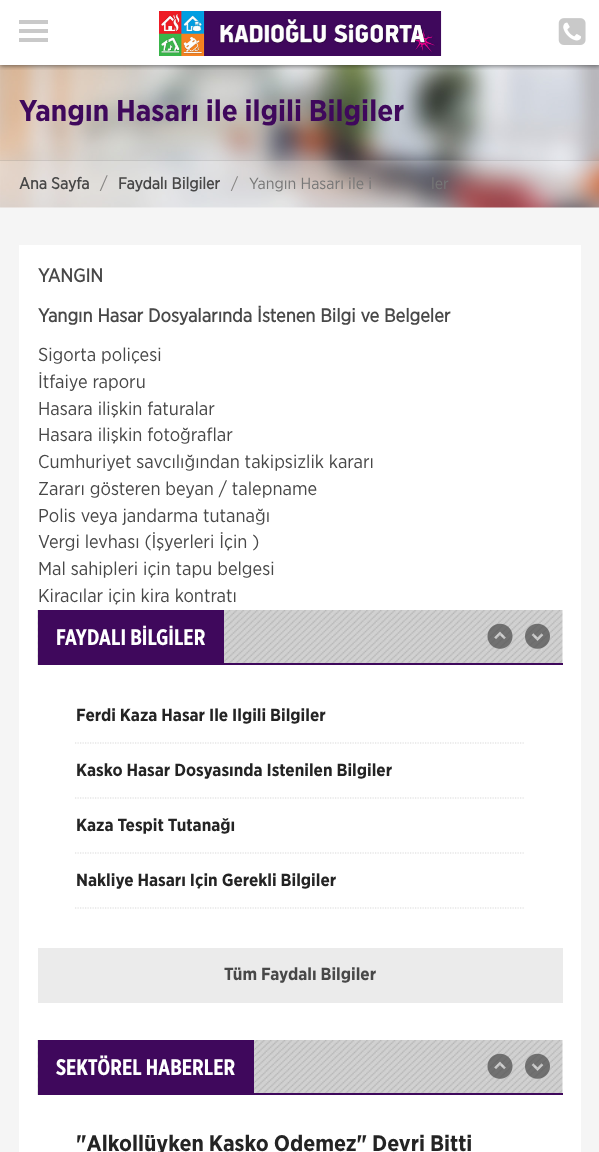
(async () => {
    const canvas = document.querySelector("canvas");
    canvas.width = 599;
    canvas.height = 1152;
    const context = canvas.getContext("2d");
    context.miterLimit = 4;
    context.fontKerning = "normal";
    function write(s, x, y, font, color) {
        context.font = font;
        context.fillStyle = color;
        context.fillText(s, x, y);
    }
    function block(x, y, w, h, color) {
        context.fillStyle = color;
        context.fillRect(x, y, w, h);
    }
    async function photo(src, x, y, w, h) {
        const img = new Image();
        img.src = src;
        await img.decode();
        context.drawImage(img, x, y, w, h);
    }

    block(0, 0, 599, 1152, "rgb(245, 245, 245)");
    block(0, 0, 599, 65, "rgb(255, 255, 255)");
    await photo("media/3.png", 0, 65, 599, 143);
    context.save();
    context.beginPath();
    context.rect(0, 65, 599, 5);
    context.clip();
    context.fillStyle = "rgba(0, 0, 0, 0.5)";
    context.filter = "blur(2.5px)";
    context.beginPath();
    context.rect(0, 1, 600, 65);
    context.fill();
    context.filter = "none";
    context.restore();
    await photo("media/1.png", 159, 11, 283, 45);
    block(19, 29, 29, 4, "rgb(201, 201, 201)");
    block(19, 20, 29, 4, "rgb(201, 201, 201)");
    block(19, 38, 29, 4, "rgb(201, 201, 201)");
    await photo("media/2.png", 558, 18, 28, 27);
    write("Yangın Hasarı ile ilgili Bilgiler", 19, 121, "bold 30px 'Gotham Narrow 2'", "rgb(63, 8, 92)");
    block(0, 160, 599, 48, "rgba(255, 255, 255, 0.2)");
    block(0, 160, 599, 1, "rgba(0, 0, 0, 0.1)");
    write("Ana Sayfa", 19, 189, "bold 16.25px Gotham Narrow", "rgb(72, 72, 72)");
    write("/", 100, 189, "17.5px Gotham Narrow", "rgb(134, 133, 131)");
    write("Faydalı Bilgiler", 118, 189, "bold 16.25px Gotham Narrow", "rgb(72, 72, 72)");
    write("/", 231, 189, "16.25px Gotham Narrow", "rgb(134, 133, 131)");
    write("Yangın Hasarı ile i", 249, 189, "16.25px Gotham Narrow", "rgb(119, 119, 119)");
    write("ler", 431, 189, "16.25px Gotham Narrow", "rgb(119, 119, 119)");
    block(19, 245, 562, 907, "rgb(255, 255, 255)");
    write("YANGIN", 38, 282, "bold 18.75px Gotham Narrow", "rgb(72, 72, 72)");
    write("Yangın Hasar Dosyalarında İstenen Bilgi ve Belgeler", 38, 322, "bold 18.75px Gotham Narrow", "rgb(72, 72, 72)");
    write("Sigorta poliçesi", 38, 361, "18.75px Gotham Narrow", "rgb(72, 72, 72)");
    write("İtfaiye raporu", 38, 388, "18.75px Gotham Narrow", "rgb(72, 72, 72)");
    write("Hasara ilişkin faturalar", 38, 415, "18.75px Gotham Narrow", "rgb(72, 72, 72)");
    write("Hasara ilişkin fotoğraflar", 38, 441, "18.75px Gotham Narrow", "rgb(72, 72, 72)");
    write("Cumhuriyet savcılığından takipsizlik kararı", 38, 468, "18.75px Gotham Narrow", "rgb(72, 72, 72)");
    write("Zararı gösteren beyan / talepname", 38, 495, "18.75px Gotham Narrow", "rgb(72, 72, 72)");
    write("Polis veya jandarma tutanağı", 38, 522, "18.75px Gotham Narrow", "rgb(72, 72, 72)");
    write("Vergi levhası (İşyerleri İçin )", 38, 548, "18.75px Gotham Narrow", "rgb(72, 72, 72)");
    write("Mal sahipleri için tapu belgesi", 38, 575, "18.75px Gotham Narrow", "rgb(72, 72, 72)");
    write("Kiracılar için kira kontratı", 38, 602, "18.75px Gotham Narrow", "rgb(72, 72, 72)");
    await photo("media/4.png", 37, 610, 526, 55);
    block(38, 663, 525, 2, "rgb(63, 8, 92)");
    block(38, 610, 186, 53, "rgb(63, 8, 92)");
    write("FAYDALI BİLGİLER", 56, 645, "bold 22.5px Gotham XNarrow", "rgb(255, 255, 255)");
    await photo("media/5.png", 487, 623, 26, 26);
    await photo("media/6.png", 525, 623, 25, 26);
    context.beginPath();
    context.moveTo(75, 743);
    context.lineTo(525, 743);
    context.strokeStyle = "rgb(217, 217, 217)";
    context.lineWidth = 1.2;
    context.setLineDash([1.25, 1.25]);
    context.stroke();
    context.save();
    context.beginPath();
    context.rect(76, 708, 448, 17);
    context.clip();
    write("Ferdi Kaza Hasar İle İlgili Bilgiler", 76, 721, "bold 17.5px 'Gotham Narrow 2'", "rgb(36, 36, 36)");
    context.restore();
    context.beginPath();
    context.moveTo(75, 798);
    context.lineTo(525, 798);
    context.stroke();
    context.save();
    context.beginPath();
    context.rect(76, 763, 448, 17);
    context.clip();
    write("Kasko Hasar Dosyasında İstenilen Bilgiler", 76, 776, "bold 17.5px 'Gotham Narrow 2'", "rgb(36, 36, 36)");
    context.restore();
    context.beginPath();
    context.moveTo(75, 853);
    context.lineTo(525, 853);
    context.stroke();
    write("Kaza Tespit Tutanağı", 76, 831, "bold 17.5px 'Gotham Narrow 2'", "rgb(36, 36, 36)");
    context.beginPath();
    context.moveTo(75, 908);
    context.lineTo(525, 908);
    context.stroke();
    context.save();
    context.beginPath();
    context.rect(76, 873, 448, 17);
    context.clip();
    write("Nakliye Hasarı İçin Gerekli Bilgiler", 76, 886, "bold 17.5px 'Gotham Narrow 2'", "rgb(36, 36, 36)");
    context.restore();
    block(38, 948, 525, 55, "rgb(235, 235, 235)");
    write("Tüm Faydalı Bilgiler", 224, 980, "bold 17.5px 'Gotham Narrow 2'", "rgb(72, 72, 72)");
    await photo("media/4.png", 37, 1040, 526, 55);
    block(38, 1093, 525, 2, "rgb(63, 8, 92)");
    block(38, 1040, 216, 53, "rgb(63, 8, 92)");
    write("SEKTÖREL HABERLER", 56, 1075, "bold 22.5px Gotham XNarrow", "rgb(255, 255, 255)");
    await photo("media/5.png", 487, 1053, 26, 26);
    await photo("media/6.png", 525, 1053, 25, 26);
    context.save();
    context.beginPath();
    context.rect(76, 1134, 448, 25);
    context.clip();
    write("\"Alkollüyken Kasko Ödemez\" Devri Bitti", 76, 1151, "bold 22.5px 'Gotham Narrow 2'", "rgb(36, 36, 36)");
    context.restore();
})();
